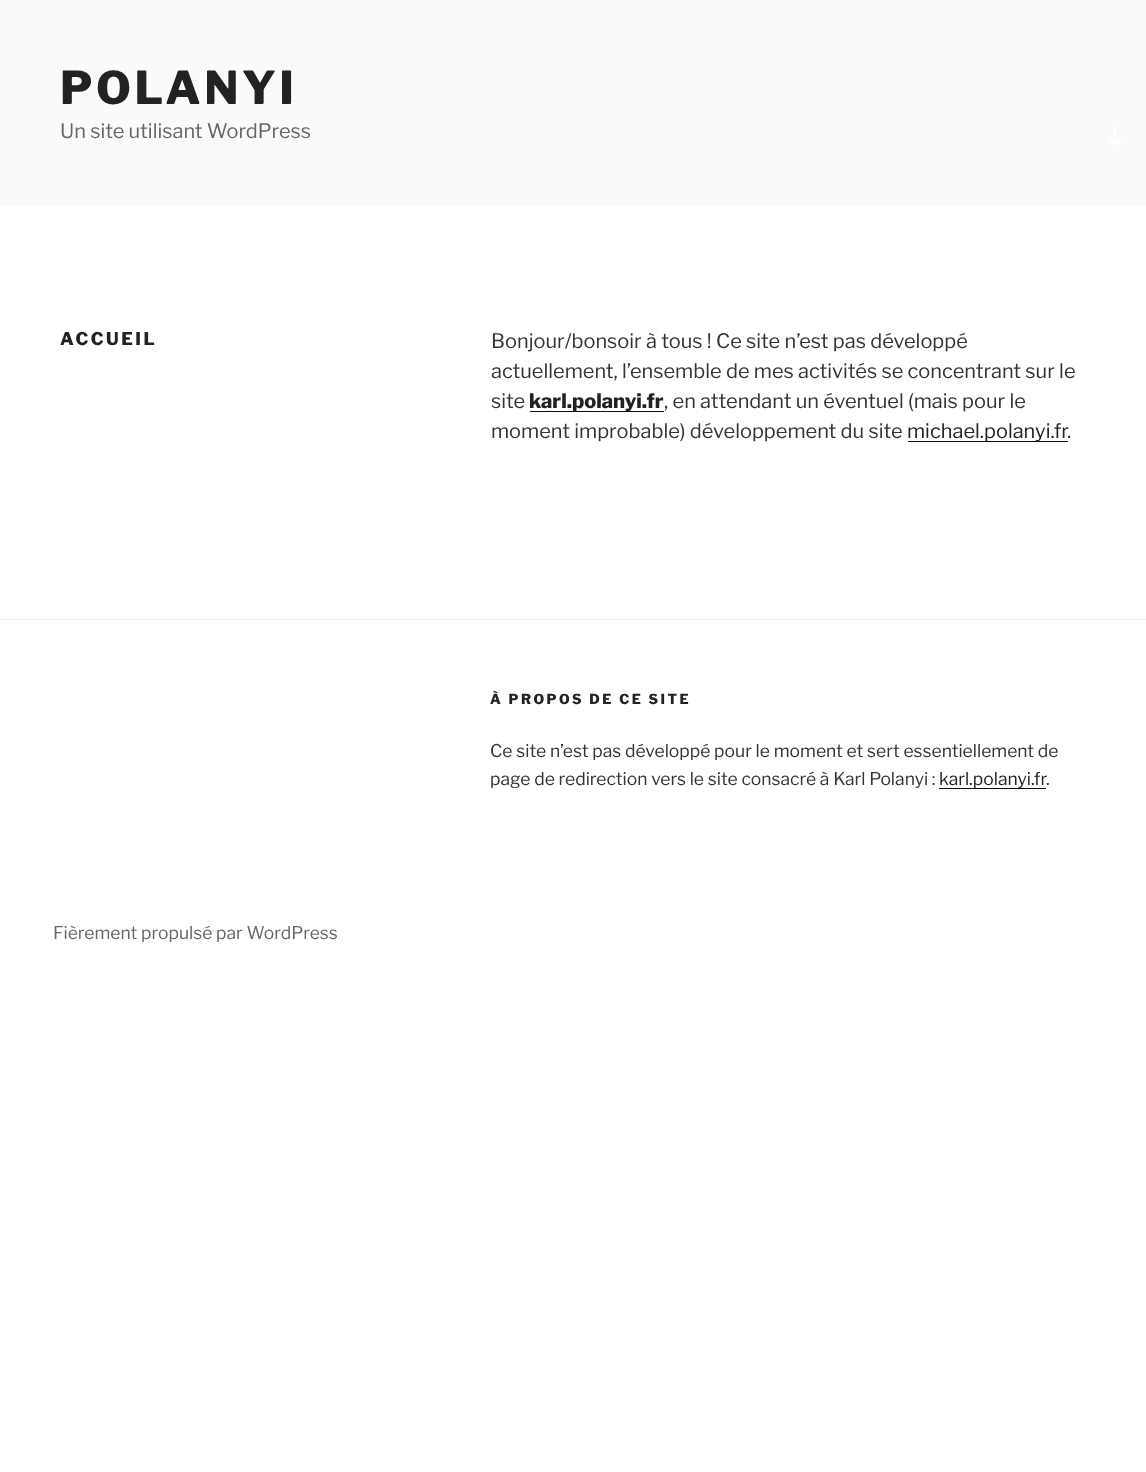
(async () => {
    const canvas = document.querySelector("canvas");
    canvas.width = 1146;
    canvas.height = 1472;
    const context = canvas.getContext("2d");
    context.miterLimit = 4;
    context.fontKerning = "normal";
    function write(s, x, y, font, color) {
        context.font = font;
        context.fillStyle = color;
        context.fillText(s, x, y);
    }
    function block(x, y, w, h, color) {
        context.fillStyle = color;
        context.fillRect(x, y, w, h);
    }
    async function photo(src, x, y, w, h) {
        const img = new Image();
        img.src = src;
        await img.decode();
        context.drawImage(img, x, y, w, h);
    }

    block(0, 0, 1146, 1472, "rgb(255, 255, 255)");
    block(0, 0, 1146, 206, "rgb(250, 250, 250)");
    context.letterSpacing = "3.5px";
    write("POLANYI", 60, 104, "100 45px Libre Franklin", "rgb(34, 34, 34)");
    context.letterSpacing = "0px";
    write("Un site utilisant WordPress", 60, 138, "100 20px 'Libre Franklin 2'", "rgb(102, 102, 102)");
    await photo("media/1.png", 1107, 124, 16, 21);
    context.letterSpacing = "2.5px";
    write("ACCUEIL", 60, 345, "100 17.5px Libre Franklin", "rgb(34, 34, 34)");
    context.letterSpacing = "0px";
    write("Bonjour/bonsoir à tous ! Ce site n’est pas développé", 491, 348, "100 20px 'Libre Franklin 2'", "rgb(51, 51, 51)");
    write("actuellement, l’ensemble de mes activités se concentrant sur le", 491, 378, "100 20px 'Libre Franklin 2'", "rgb(51, 51, 51)");
    write("site", 491, 408, "100 20px 'Libre Franklin 2'", "rgb(51, 51, 51)");
    block(530, 411, 134, 1, "rgb(15, 15, 15)");
    write("karl.polanyi.fr", 529, 408, "100 20px Libre Franklin", "rgb(34, 34, 34)");
    write(", en attendant un éventuel (mais pour le", 664, 408, "100 20px 'Libre Franklin 2'", "rgb(51, 51, 51)");
    write("moment improbable) développement du site", 491, 438, "100 20px 'Libre Franklin 2'", "rgb(51, 51, 51)");
    block(908, 441, 160, 1, "rgb(15, 15, 15)");
    write("michael.polanyi.fr", 907, 438, "100 20px 'Libre Franklin 2'", "rgb(34, 34, 34)");
    write(".", 1067, 438, "100 20px 'Libre Franklin 2'", "rgb(51, 51, 51)");
    block(0, 619, 1146, 1, "rgb(238, 238, 238)");
    context.letterSpacing = "2.5px";
    write("À PROPOS DE CE SITE", 490, 704, "100 13.75px Libre Franklin", "rgb(34, 34, 34)");
    context.letterSpacing = "0px";
    write("Ce site n’est pas développé pour le moment et sert essentiellement de", 490, 757, "100 17.5px 'Libre Franklin 2'", "rgb(51, 51, 51)");
    write("page de redirection vers le site consacré à Karl Polanyi :", 490, 785, "100 17.5px 'Libre Franklin 2'", "rgb(51, 51, 51)");
    write("karl.polanyi.fr", 939, 785, "100 17.5px 'Libre Franklin 2'", "rgb(34, 34, 34)");
    block(939, 788, 107, 1, "rgb(15, 15, 15)");
    write(".", 1046, 785, "100 17.5px 'Libre Franklin 2'", "rgb(51, 51, 51)");
    write("Fièrement propulsé par WordPress", 53, 939, "100 17.5px 'Libre Franklin 2'", "rgb(102, 102, 102)");
})();
